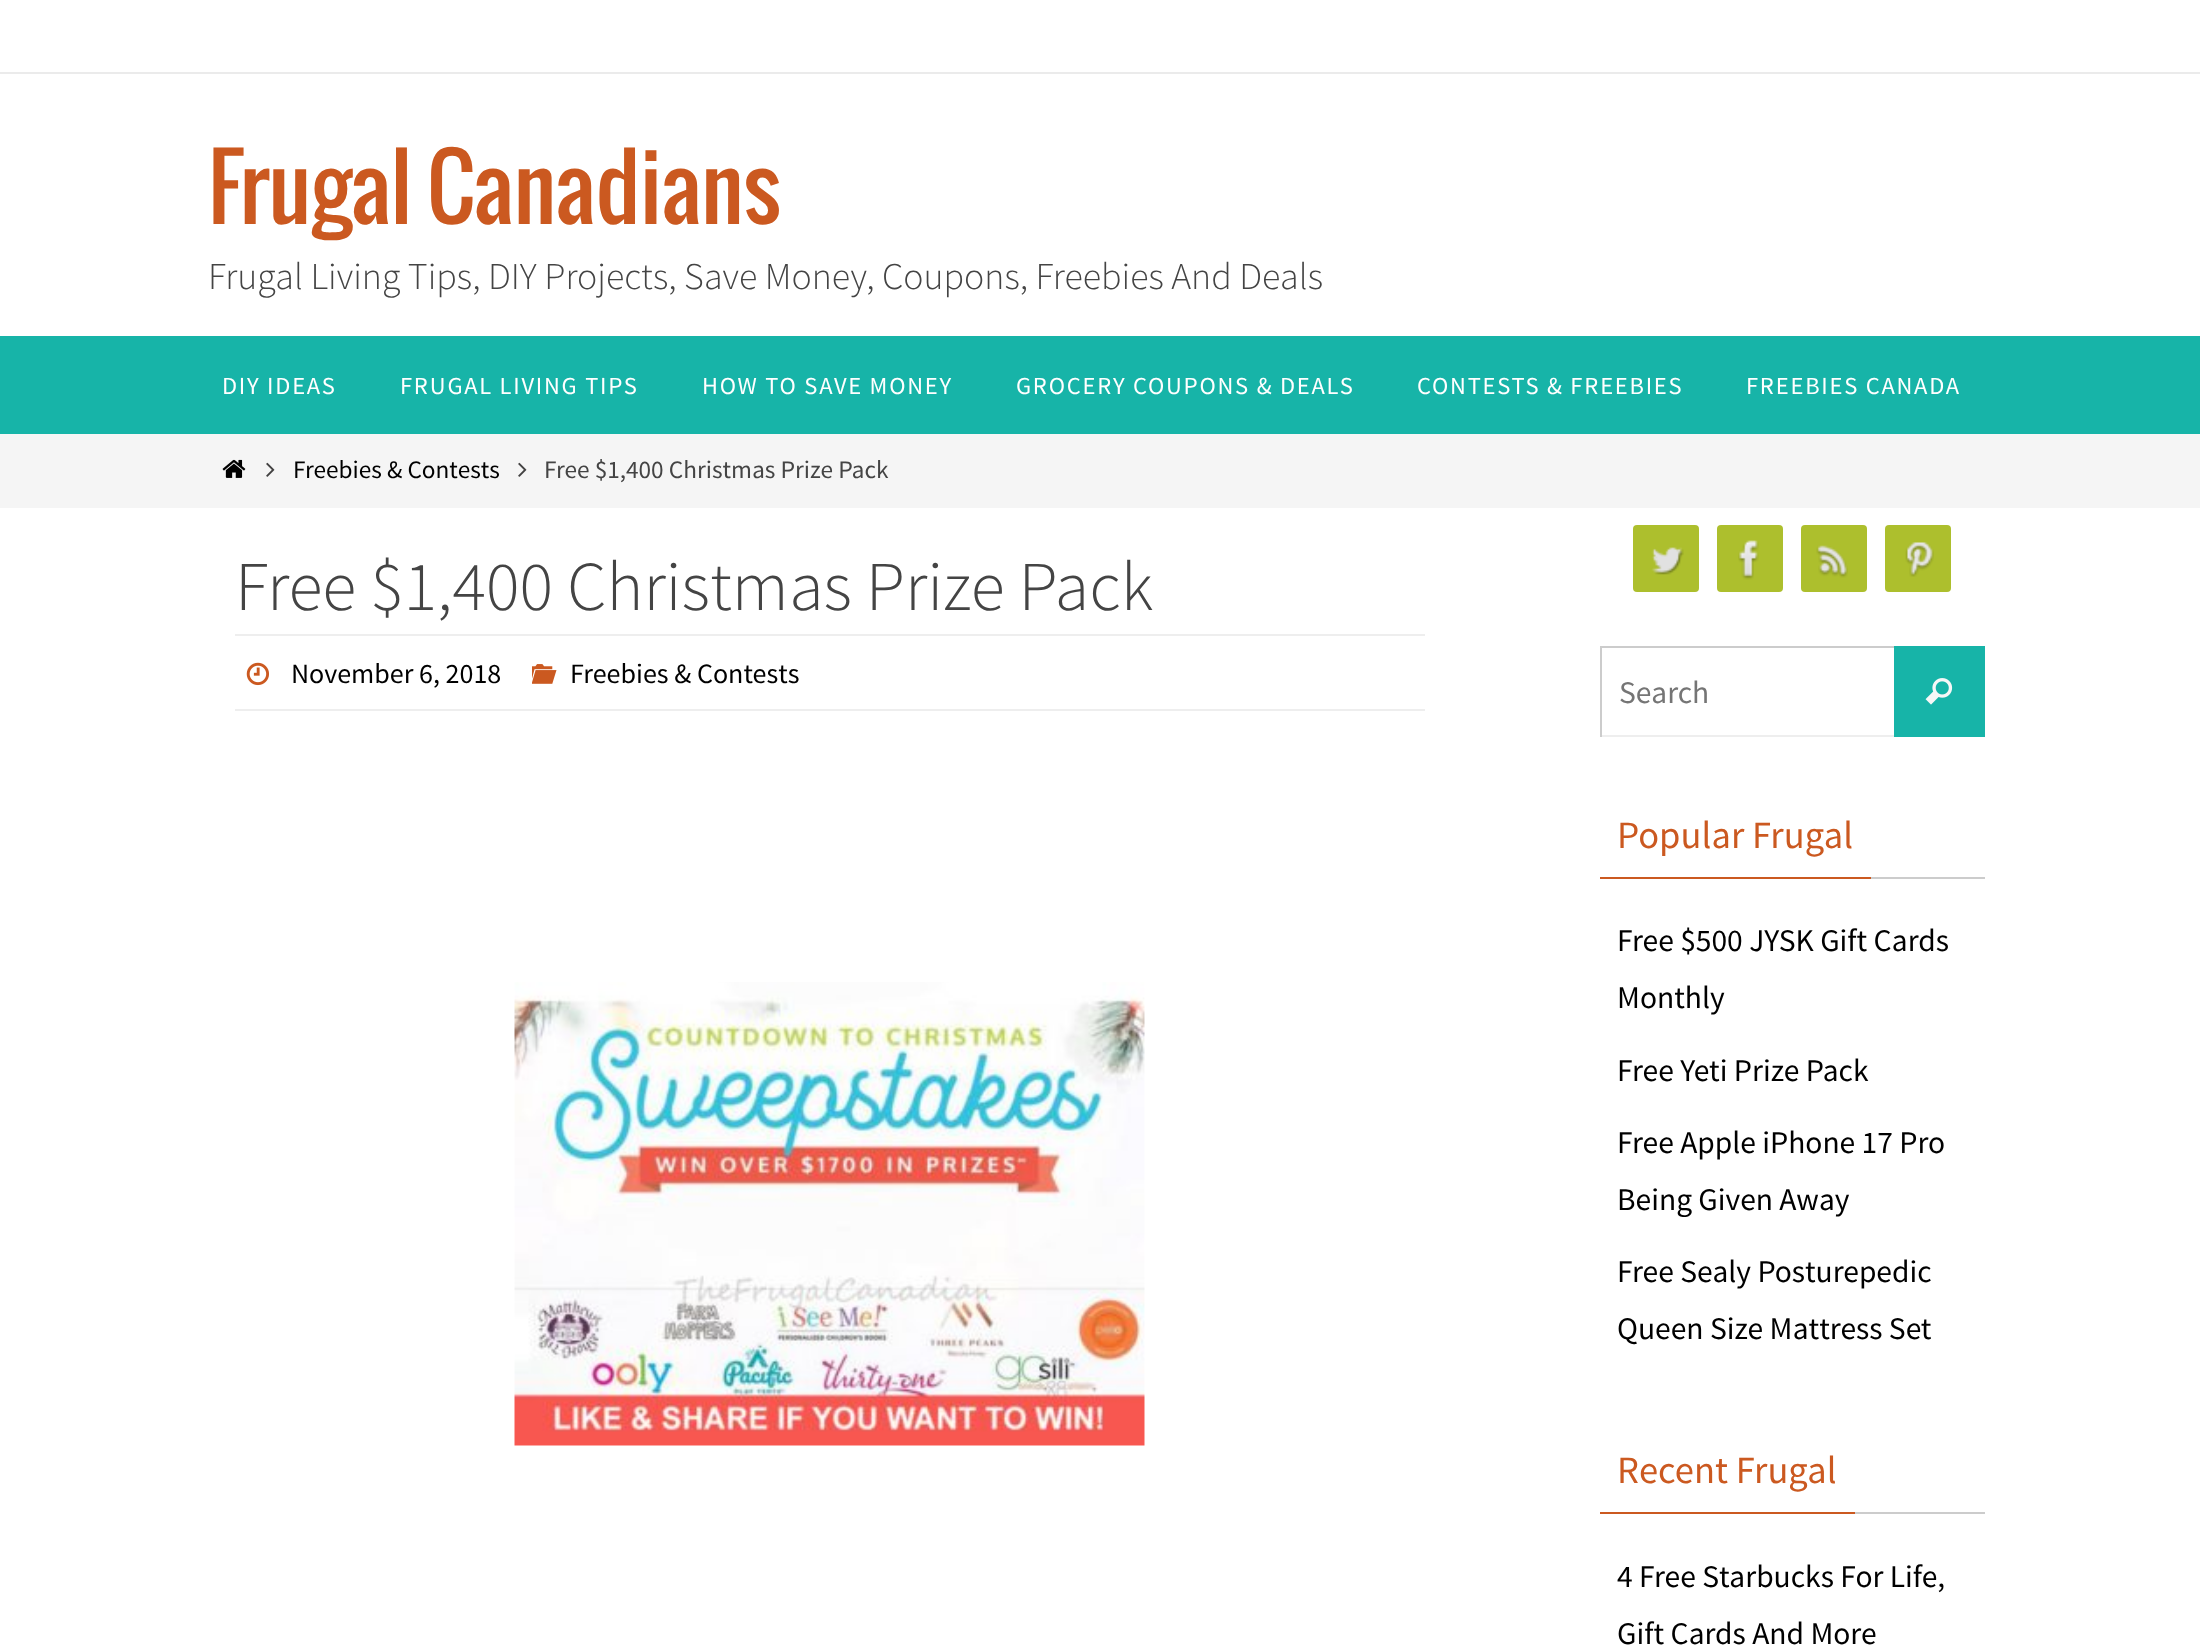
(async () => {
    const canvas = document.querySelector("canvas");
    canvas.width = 2200;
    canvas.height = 1650;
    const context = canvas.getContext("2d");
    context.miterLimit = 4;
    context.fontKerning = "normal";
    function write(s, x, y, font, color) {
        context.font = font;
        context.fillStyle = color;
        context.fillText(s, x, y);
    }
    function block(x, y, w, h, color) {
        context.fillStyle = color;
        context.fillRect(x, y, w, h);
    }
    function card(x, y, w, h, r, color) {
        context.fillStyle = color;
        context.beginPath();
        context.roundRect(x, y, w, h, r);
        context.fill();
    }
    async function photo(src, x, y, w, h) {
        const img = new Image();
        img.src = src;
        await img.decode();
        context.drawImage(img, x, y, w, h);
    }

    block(0, 0, 2200, 1650, "rgb(255, 255, 255)");
    block(0, 72, 2200, 2, "rgb(235, 235, 235)");
    write("Frugal Canadians", 208, 224, "87.5px Oswald", "rgb(203, 89, 32)");
    write("Frugal Living Tips, DIY Projects, Save Money, Coupons, Freebies And Deals", 208, 289, "300 37.8px Source Sans Pro", "rgb(68, 68, 68)");
    block(0, 336, 2200, 98, "rgb(23, 180, 168)");
    context.letterSpacing = "1.75px";
    write("DIY IDEAS", 222, 394, "24.5px Source Sans Pro", "rgb(255, 255, 255)");
    write("FRUGAL LIVING TIPS", 400, 394, "24.5px Source Sans Pro", "rgb(255, 255, 255)");
    write("HOW TO SAVE MONEY", 702, 394, "24.5px Source Sans Pro", "rgb(255, 255, 255)");
    write("GROCERY COUPONS & DEALS", 1016, 394, "24.5px Source Sans Pro", "rgb(255, 255, 255)");
    write("CONTESTS & FREEBIES", 1417, 394, "24.5px Source Sans Pro", "rgb(255, 255, 255)");
    write("FREEBIES CANADA", 1746, 394, "24.5px Source Sans Pro", "rgb(255, 255, 255)");
    block(0, 434, 2200, 74, "rgb(245, 245, 245)");
    await photo("media/1.png", 222, 459, 24, 19);
    await photo("media/2.png", 266, 462, 9, 15);
    context.letterSpacing = "0px";
    write("Freebies & Contests", 293, 478, "25.25px Source Sans Pro", "rgb(0, 0, 0)");
    await photo("media/2.png", 518, 462, 9, 15);
    write("Free $1,400 Christmas Prize Pack", 544, 478, "25.25px Source Sans Pro", "rgb(68, 68, 68)");
    write("Free $1,400 Christmas Prize Pack", 235, 610, "300 70px Source Sans Pro", "rgb(68, 68, 68)");
    block(235, 634, 1190, 2, "rgb(238, 238, 238)");
    block(235, 709, 1190, 2, "rgb(238, 238, 238)");
    await photo("media/3.png", 246, 662, 23, 24);
    write("November 6, 2018", 291, 683, "28px Source Sans Pro", "rgb(0, 0, 0)");
    await photo("media/4.png", 532, 664, 25, 20);
    write("Freebies & Contests", 570, 683, "28px Source Sans Pro", "rgb(0, 0, 0)");
    await photo("media/5.png", 514, 982, 631, 464);
    card(1633, 525, 66, 67, 4, "rgb(173, 191, 45)");
    await photo("media/6.png", 1651, 547, 33, 28);
    card(1717, 525, 66, 67, 4, "rgb(173, 191, 45)");
    await photo("media/7.png", 1738, 540, 21, 40);
    card(1801, 525, 66, 67, 4, "rgb(173, 191, 45)");
    await photo("media/8.png", 1816, 545, 32, 33);
    card(1885, 525, 66, 67, 4, "rgb(173, 191, 45)");
    await photo("media/9.png", 1905, 542, 29, 35);
    block(1894, 646, 91, 91, "rgb(23, 180, 168)");
    block(1600, 646, 294, 2, "rgb(204, 204, 204)");
    block(1600, 735, 294, 2, "rgb(238, 238, 238)");
    block(1600, 646, 2, 91, "rgb(204, 204, 204)");
    write("Search", 1619, 703, "31.5px Source Sans Pro", "rgb(117, 117, 117)");
    await photo("media/10.png", 1925, 678, 28, 27);
    block(1871, 877, 114, 2, "rgb(204, 204, 204)");
    block(1600, 877, 271, 2, "rgb(203, 89, 32)");
    write("Popular Frugal", 1617, 848, "38.5px Source Sans Pro", "rgb(203, 89, 32)");
    write("Free $500 JYSK Gift Cards", 1617, 951, "31.5px Source Sans Pro", "rgb(0, 0, 0)");
    write("Monthly", 1617, 1008, "31.5px Source Sans Pro", "rgb(0, 0, 0)");
    write("Free Yeti Prize Pack", 1617, 1081, "31.5px Source Sans Pro", "rgb(0, 0, 0)");
    write("Free Apple iPhone 17 Pro", 1617, 1153, "31.5px Source Sans Pro", "rgb(0, 0, 0)");
    write("Being Given Away", 1617, 1210, "31.5px Source Sans Pro", "rgb(0, 0, 0)");
    write("Free Sealy Posturepedic", 1617, 1282, "31.5px Source Sans Pro", "rgb(0, 0, 0)");
    write("Queen Size Mattress Set", 1617, 1339, "31.5px Source Sans Pro", "rgb(0, 0, 0)");
    block(1855, 1512, 130, 2, "rgb(204, 204, 204)");
    block(1600, 1512, 255, 2, "rgb(203, 89, 32)");
    write("Recent Frugal", 1617, 1483, "38.5px Source Sans Pro", "rgb(203, 89, 32)");
    write("4 Free Starbucks For Life,", 1617, 1587, "31.5px Source Sans Pro", "rgb(0, 0, 0)");
    write("Gift Cards And More", 1617, 1644, "31.5px Source Sans Pro", "rgb(0, 0, 0)");
})();
